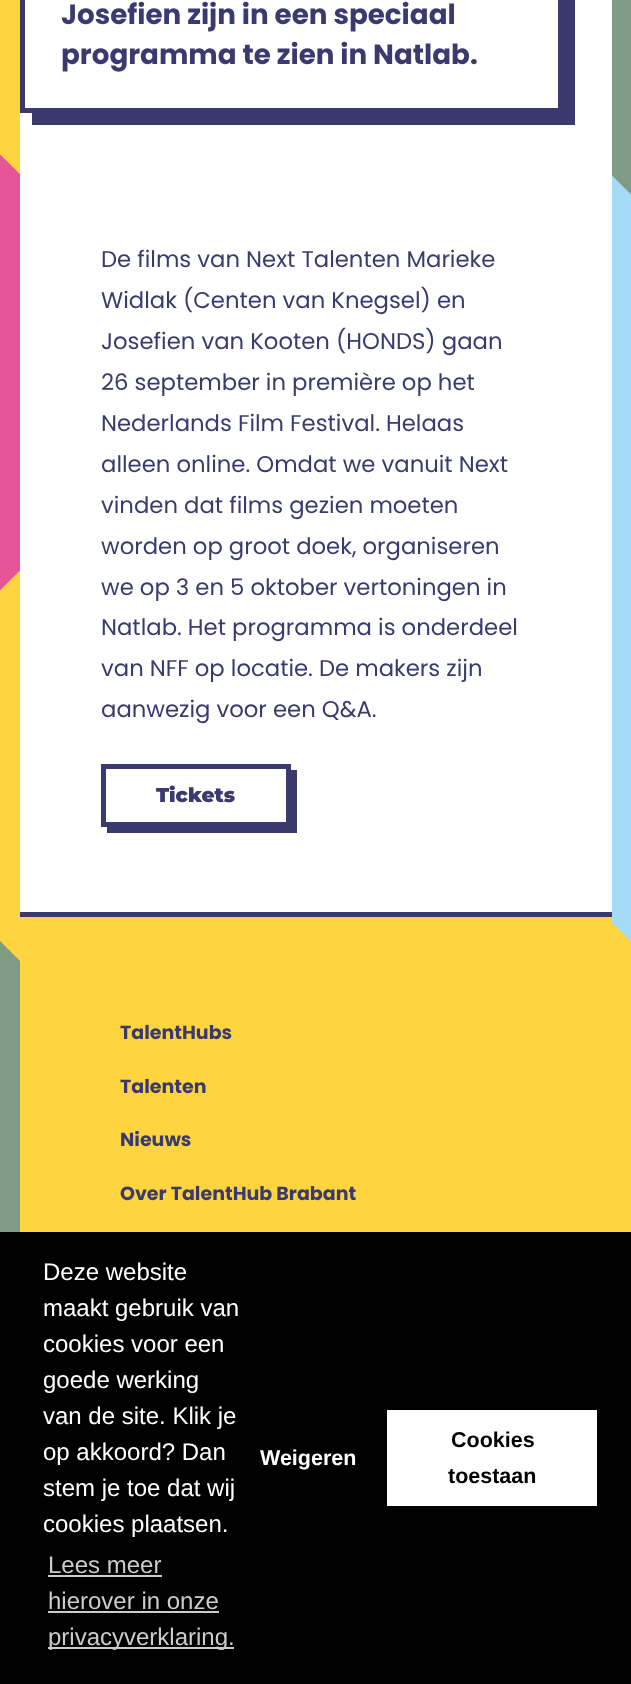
(async () => {
    const canvas = document.querySelector("canvas");
    canvas.width = 631;
    canvas.height = 1684;
    const context = canvas.getContext("2d");
    context.miterLimit = 4;
    context.fontKerning = "normal";
    function write(s, x, y, font, color) {
        context.font = font;
        context.fillStyle = color;
        context.fillText(s, x, y);
    }
    function block(x, y, w, h, color) {
        context.fillStyle = color;
        context.fillRect(x, y, w, h);
    }
    async function photo(src, x, y, w, h) {
        const img = new Image();
        img.src = src;
        await img.decode();
        context.drawImage(img, x, y, w, h);
    }

    block(0, 0, 631, 1684, "rgb(255, 255, 255)");
    await photo("media/1.png", 0, 0, 631, 1232);
    block(20, 0, 592, 912, "rgb(255, 255, 255)");
    context.fillStyle = "rgb(59, 58, 110)";
    context.beginPath();
    context.moveTo(32, 112);
    context.lineTo(32, 125);
    context.lineTo(575, 125);
    context.lineTo(575, -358);
    context.lineTo(562, -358);
    context.lineTo(562, 112);
    context.closePath();
    context.fill();
    context.strokeStyle = "rgb(59, 58, 110)";
    context.lineWidth = 5;
    context.strokeRect(22.5, -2.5, 538, 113);
    write("Josefien zijn in een speciaal", 61, 24, "bold 27.75px Poppins", "rgb(59, 58, 110)");
    write("programma te zien in Natlab.", 61, 64, "bold 27.75px Poppins", "rgb(59, 58, 110)");
    write("De films van Next Talenten Marieke", 101, 267, "22.75px Poppins", "rgb(59, 58, 110)");
    write("Widlak (Centen van Knegsel) en", 101, 308, "22.75px Poppins", "rgb(59, 58, 110)");
    write("Josefien van Kooten (HONDS) gaan", 101, 349, "22.75px Poppins", "rgb(59, 58, 110)");
    write("26 september in première op het", 101, 390, "22.75px Poppins", "rgb(59, 58, 110)");
    write("Nederlands Film Festival. Helaas", 101, 431, "22.75px Poppins", "rgb(59, 58, 110)");
    write("alleen online. Omdat we vanuit Next", 101, 472, "22.75px Poppins", "rgb(59, 58, 110)");
    write("vinden dat films gezien moeten", 101, 513, "22.75px Poppins", "rgb(59, 58, 110)");
    write("worden op groot doek, organiseren", 101, 554, "22.75px Poppins", "rgb(59, 58, 110)");
    write("we op 3 en 5 oktober vertoningen in", 101, 595, "22.75px Poppins", "rgb(59, 58, 110)");
    write("Natlab. Het programma is onderdeel", 101, 635, "22.75px Poppins", "rgb(59, 58, 110)");
    write("van NFF op locatie. De makers zijn", 101, 676, "22.75px Poppins", "rgb(59, 58, 110)");
    write("aanwezig voor een Q&A.", 101, 717, "22.75px Poppins", "rgb(59, 58, 110)");
    context.beginPath();
    context.moveTo(107, 826);
    context.lineTo(107, 833);
    context.lineTo(297, 833);
    context.lineTo(297, 770);
    context.lineTo(291, 770);
    context.lineTo(291, 826);
    context.closePath();
    context.fill();
    context.strokeRect(103.5, 766.5, 185, 58);
    write("Tickets", 156, 802, "900 20px Montserrat", "rgb(59, 58, 110)");
    block(20, 917, 592, 315, "rgb(254, 213, 62)");
    block(20, 912, 592, 5, "rgb(59, 58, 110)");
    write("TalentHubs", 120, 1039, "bold 19px Poppins", "rgb(59, 58, 110)");
    write("Talenten", 120, 1093, "bold 19px Poppins", "rgb(59, 58, 110)");
    write("Nieuws", 120, 1146, "bold 19px Poppins", "rgb(59, 58, 110)");
    write("Over TalentHub Brabant", 120, 1200, "bold 19px Poppins", "rgb(59, 58, 110)");
    block(0, 1232, 631, 452, "rgb(0, 0, 0)");
    write("Deze website", 43, 1280, "24px Liberation Sans", "rgb(255, 255, 255)");
    write("maakt gebruik van", 43, 1316, "24px Liberation Sans", "rgb(255, 255, 255)");
    write("cookies voor een", 43, 1352, "24px Liberation Sans", "rgb(255, 255, 255)");
    write("goede werking", 43, 1388, "24px Liberation Sans", "rgb(255, 255, 255)");
    write("van de site. Klik je", 43, 1424, "24px Liberation Sans", "rgb(255, 255, 255)");
    write("op akkoord? Dan", 43, 1460, "24px Liberation Sans", "rgb(255, 255, 255)");
    write("stem je toe dat wij", 43, 1496, "24px Liberation Sans", "rgb(255, 255, 255)");
    write("cookies plaatsen.", 43, 1532, "24px Liberation Sans", "rgb(255, 255, 255)");
    write("Lees meer", 48, 1573, "24px Liberation Sans", "rgb(204, 204, 204)");
    block(48, 1575, 114, 2, "rgb(204, 204, 204)");
    write("hierover in onze", 48, 1609, "24px Liberation Sans", "rgb(204, 204, 204)");
    block(48, 1611, 171, 2, "rgb(204, 204, 204)");
    block(48, 1647, 186, 2, "rgb(204, 204, 204)");
    write("privacyverklaring.", 48, 1645, "24px Liberation Sans", "rgb(204, 204, 204)");
    write("Weigeren", 260, 1465, "bold 21.5px Liberation Sans", "rgb(255, 255, 255)");
    block(387, 1410, 210, 96, "rgb(255, 255, 255)");
    write("Cookies", 451, 1447, "bold 21.5px Liberation Sans", "rgb(0, 0, 0)");
    write("toestaan", 448, 1483, "bold 21.5px Liberation Sans", "rgb(0, 0, 0)");
})();
